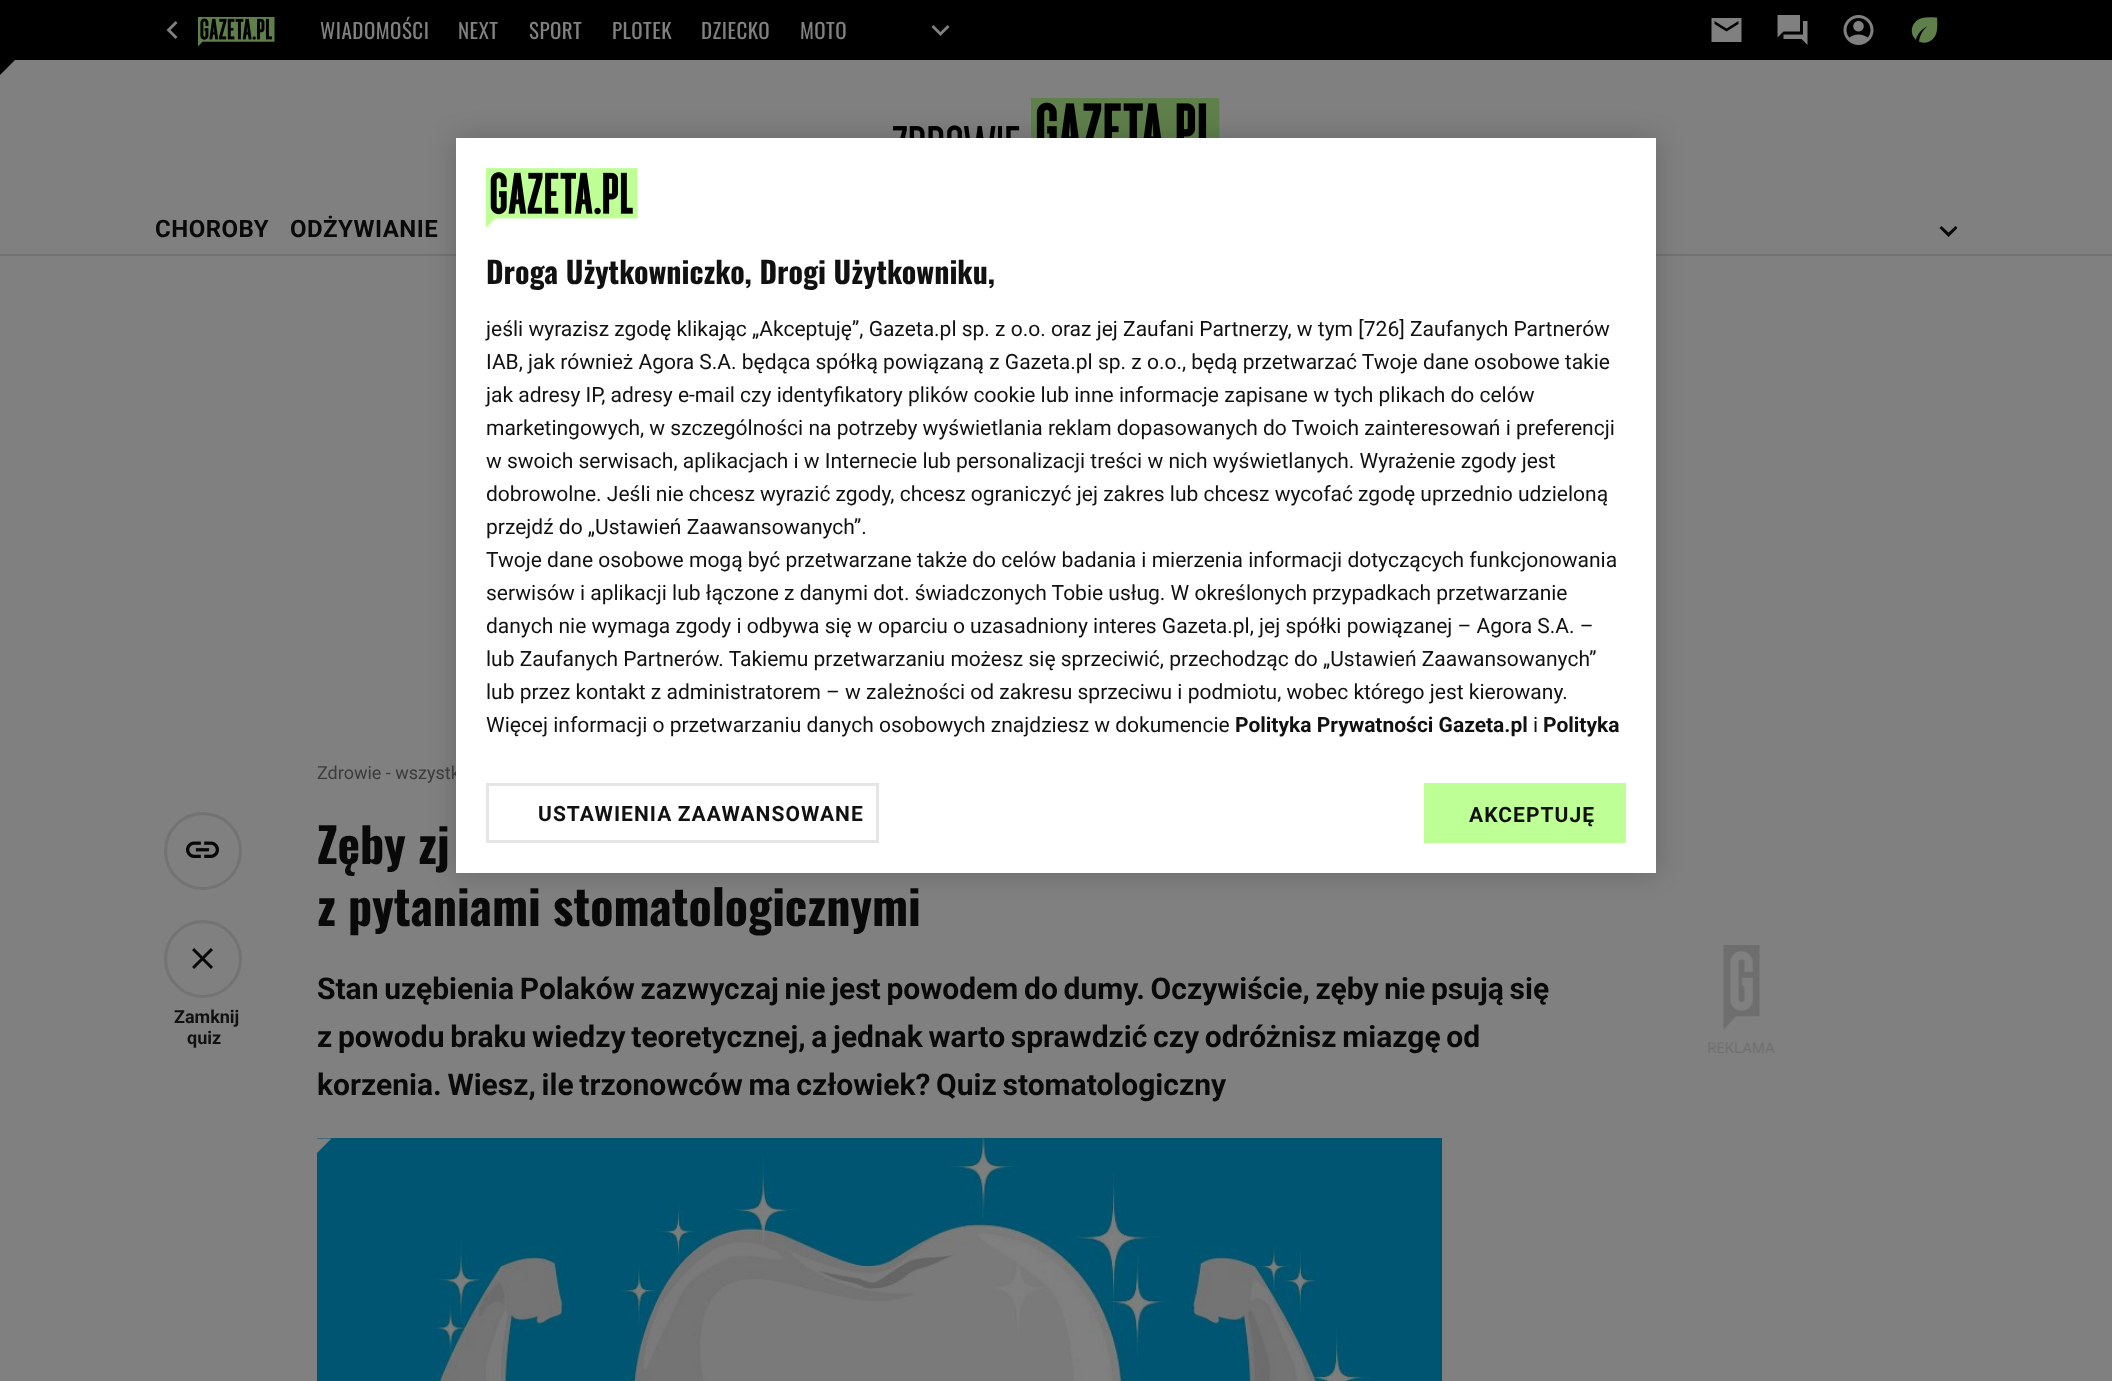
(async () => {
    const canvas = document.querySelector("canvas");
    canvas.width = 2112;
    canvas.height = 1381;
    const context = canvas.getContext("2d");
    context.miterLimit = 4;
    context.fontKerning = "normal";
    function write(s, x, y, font, color) {
        context.font = font;
        context.fillStyle = color;
        context.fillText(s, x, y);
    }
    function block(x, y, w, h, color) {
        context.fillStyle = color;
        context.fillRect(x, y, w, h);
    }
    async function photo(src, x, y, w, h) {
        const img = new Image();
        img.src = src;
        await img.decode();
        context.drawImage(img, x, y, w, h);
    }

    block(0, 0, 2112, 1381, "rgb(128, 128, 128)");
    block(0, 0, 2112, 60, "rgb(0, 0, 0)");
    context.fillStyle = "rgb(128, 128, 128)";
    context.beginPath();
    context.moveTo(177.5, 23);
    context.lineTo(175.5, 21);
    context.lineTo(166.5, 30);
    context.lineTo(175.5, 39);
    context.lineTo(177.5, 37);
    context.lineTo(170.5, 30);
    context.closePath();
    context.fill();
    await photo("media/1.png", 198, 17, 77, 30);
    context.letterSpacing = "0.5px";
    write("WIADOMOŚCI", 320, 39, "21px Oswald", "rgb(128, 128, 128)");
    write("NEXT", 458, 39, "21px Oswald", "rgb(128, 128, 128)");
    write("SPORT", 529, 39, "21px Oswald", "rgb(128, 128, 128)");
    write("PLOTEK", 612, 39, "21px Oswald", "rgb(128, 128, 128)");
    write("DZIECKO", 701, 39, "21px Oswald", "rgb(128, 128, 128)");
    write("MOTO", 800, 39, "21px Oswald", "rgb(128, 128, 128)");
    context.beginPath();
    context.moveTo(947.5, 25);
    context.lineTo(940.5, 32);
    context.lineTo(933.5, 25);
    context.lineTo(931.5, 27);
    context.lineTo(940.5, 36);
    context.lineTo(949.5, 27);
    context.closePath();
    context.fill();
    context.beginPath();
    context.moveTo(1738.5, 21);
    context.lineTo(1738.5, 24);
    context.lineTo(1726.5, 31.5);
    context.lineTo(1714.5, 24);
    context.lineTo(1714.5, 21);
    context.lineTo(1726.5, 28.5);
    context.closePath();
    context.moveTo(1711.5, 42);
    context.lineTo(1741.5, 42);
    context.lineTo(1741.5, 18);
    context.lineTo(1711.5, 18);
    context.closePath();
    context.fill();
    await photo("media/2.png", 1777, 15, 31, 30);
    await photo("media/3.png", 1843, 15, 31, 30);
    await photo("media/4.png", 1911, 17, 27, 26);
    context.fillStyle = "rgb(0, 0, 0)";
    context.beginPath();
    context.moveTo(0, 60);
    context.lineTo(15, 60);
    context.lineTo(0, 75);
    context.closePath();
    context.fill();
    block(0, 254, 2112, 2, "rgb(115, 115, 115)");
    await photo("media/5.png", 893, 98, 327, 40);
    write("CHOROBY", 155, 237, "bold 24px Roboto", "rgb(9, 9, 9)");
    write("ODŻYWIANIE", 290, 237, "bold 24px Roboto", "rgb(9, 9, 9)");
    context.beginPath();
    context.moveTo(1955.5, 226);
    context.lineTo(1948.5, 232.5);
    context.lineTo(1941.5, 226);
    context.lineTo(1939.5, 228);
    context.lineTo(1948.5, 237);
    context.lineTo(1957.5, 228);
    context.closePath();
    context.fill();
    context.fillStyle = "rgba(0, 0, 0, 0.2)";
    context.filter = "blur(13.5px)";
    context.beginPath();
    context.rect(456, 138, 1200, 735);
    context.fill();
    context.filter = "none";
    context.letterSpacing = "0px";
    write("Zdrowie - wszystk", 317, 779, "18px Roboto", "rgb(59, 59, 59)");
    block(456, 138, 1200, 735, "rgb(255, 255, 255)");
    await photo("media/6.png", 486, 168, 152, 60);
    write("Droga Użytkowniczko, Drogi Użytkowniku,", 486, 284, "bold 30px Oswald", "rgb(17, 17, 17)");
    write("jeśli wyrazisz zgodę klikając „Akceptuję”, Gazeta.pl sp. z o.o. oraz jej Zaufani Partnerzy, w tym [726] Zaufanych Partnerów", 486, 336, "21px Roboto", "rgb(17, 17, 17)");
    write("IAB, jak również Agora S.A. będąca spółką powiązaną z Gazeta.pl sp. z o.o., będą przetwarzać Twoje dane osobowe takie", 486, 369, "21px Roboto", "rgb(17, 17, 17)");
    write("jak adresy IP, adresy e-mail czy identyfikatory plików cookie lub inne informacje zapisane w tych plikach do celów", 486, 402, "21px Roboto", "rgb(17, 17, 17)");
    write("marketingowych, w szczególności na potrzeby wyświetlania reklam dopasowanych do Twoich zainteresowań i preferencji", 486, 435, "21px Roboto", "rgb(17, 17, 17)");
    write("w swoich serwisach, aplikacjach i w Internecie lub personalizacji treści w nich wyświetlanych. Wyrażenie zgody jest", 486, 468, "21px Roboto", "rgb(17, 17, 17)");
    write("dobrowolne. Jeśli nie chcesz wyrazić zgody, chcesz ograniczyć jej zakres lub chcesz wycofać zgodę uprzednio udzieloną", 486, 501, "21px Roboto", "rgb(17, 17, 17)");
    write("przejdź do „Ustawień Zaawansowanych”.", 486, 534, "21px Roboto", "rgb(17, 17, 17)");
    write("Twoje dane osobowe mogą być przetwarzane także do celów badania i mierzenia informacji dotyczących funkcjonowania", 486, 567, "21px Roboto", "rgb(17, 17, 17)");
    write("serwisów i aplikacji lub łączone z danymi dot. świadczonych Tobie usług. W określonych przypadkach przetwarzanie", 486, 600, "21px Roboto", "rgb(17, 17, 17)");
    write("danych nie wymaga zgody i odbywa się w oparciu o uzasadniony interes Gazeta.pl, jej spółki powiązanej – Agora S.A. –", 486, 633, "21px Roboto", "rgb(17, 17, 17)");
    write("lub Zaufanych Partnerów. Takiemu przetwarzaniu możesz się sprzeciwić, przechodząc do „Ustawień Zaawansowanych”", 486, 666, "21px Roboto", "rgb(17, 17, 17)");
    write("lub przez kontakt z administratorem – w zależności od zakresu sprzeciwu i podmiotu, wobec którego jest kierowany.", 486, 699, "21px Roboto", "rgb(17, 17, 17)");
    write("Więcej informacji o przetwarzaniu danych osobowych znajdziesz w dokumencie", 486, 732, "21px Roboto", "rgb(17, 17, 17)");
    write("Polityka Prywatności Gazeta.pl", 1235, 732, "bold 21px Roboto", "rgb(17, 17, 17)");
    write("i", 1533, 732, "21px Roboto", "rgb(17, 17, 17)");
    write("Polityka", 1543, 732, "bold 21px Roboto", "rgb(17, 17, 17)");
    context.strokeStyle = "rgb(229, 229, 229)";
    context.lineWidth = 3;
    context.strokeRect(487.5, 784.5, 390, 57);
    context.letterSpacing = "1.05px";
    context.wordSpacing = "-1px";
    write("USTAWIENIA ZAAWANSOWANE", 538, 821, "bold 21px Roboto", "rgb(17, 17, 17)");
    block(1424, 783, 202, 60, "rgb(190, 255, 150)");
    context.wordSpacing = "0px";
    write("AKCEPTUJĘ", 1469, 822, "bold 21px Roboto", "rgb(17, 17, 17)");
    context.letterSpacing = "0px";
    write("Zęby zj", 317, 864, "bold 48px Oswald", "rgb(9, 9, 9)");
    write("z pytaniami stomatologicznymi", 317, 926, "bold 48px Oswald", "rgb(9, 9, 9)");
    context.beginPath();
    context.arc(203, 851, 37.5, 0, Math.PI * 2);
    context.strokeStyle = "rgb(115, 115, 115)";
    context.stroke();
    await photo("media/7.png", 186, 841, 33, 17);
    context.beginPath();
    context.arc(203, 959, 37.5, 0, Math.PI * 2);
    context.stroke();
    await photo("media/8.png", 192, 948, 21, 21);
    write("Zamknij", 174, 1023, "bold 18px Roboto", "rgb(17, 17, 17)");
    write("quiz", 187, 1044, "bold 18px Roboto", "rgb(17, 17, 17)");
    context.wordSpacing = "-1.75px";
    write("Stan uzębienia Polaków zazwyczaj nie jest powodem do dumy. Oczywiście, zęby nie psują się", 317, 999, "bold 30px Roboto", "rgb(9, 9, 9)");
    write("z powodu braku wiedzy teoretycznej, a jednak warto sprawdzić czy odróżnisz miazgę od", 317, 1047, "bold 30px Roboto", "rgb(9, 9, 9)");
    write("korzenia. Wiesz, ile trzonowców ma człowiek? Quiz stomatologiczny", 317, 1095, "bold 30px Roboto", "rgb(9, 9, 9)");
    await photo("media/9.png", 1708, 945, 67, 108);
    await photo("media/10.png", 317, 1138, 1125, 243);
    context.fillStyle = "rgb(128, 128, 128)";
    context.beginPath();
    context.moveTo(316.5, 1138.5);
    context.lineTo(331.5, 1138.5);
    context.lineTo(316.5, 1153.5);
    context.closePath();
    context.fill();
})();
